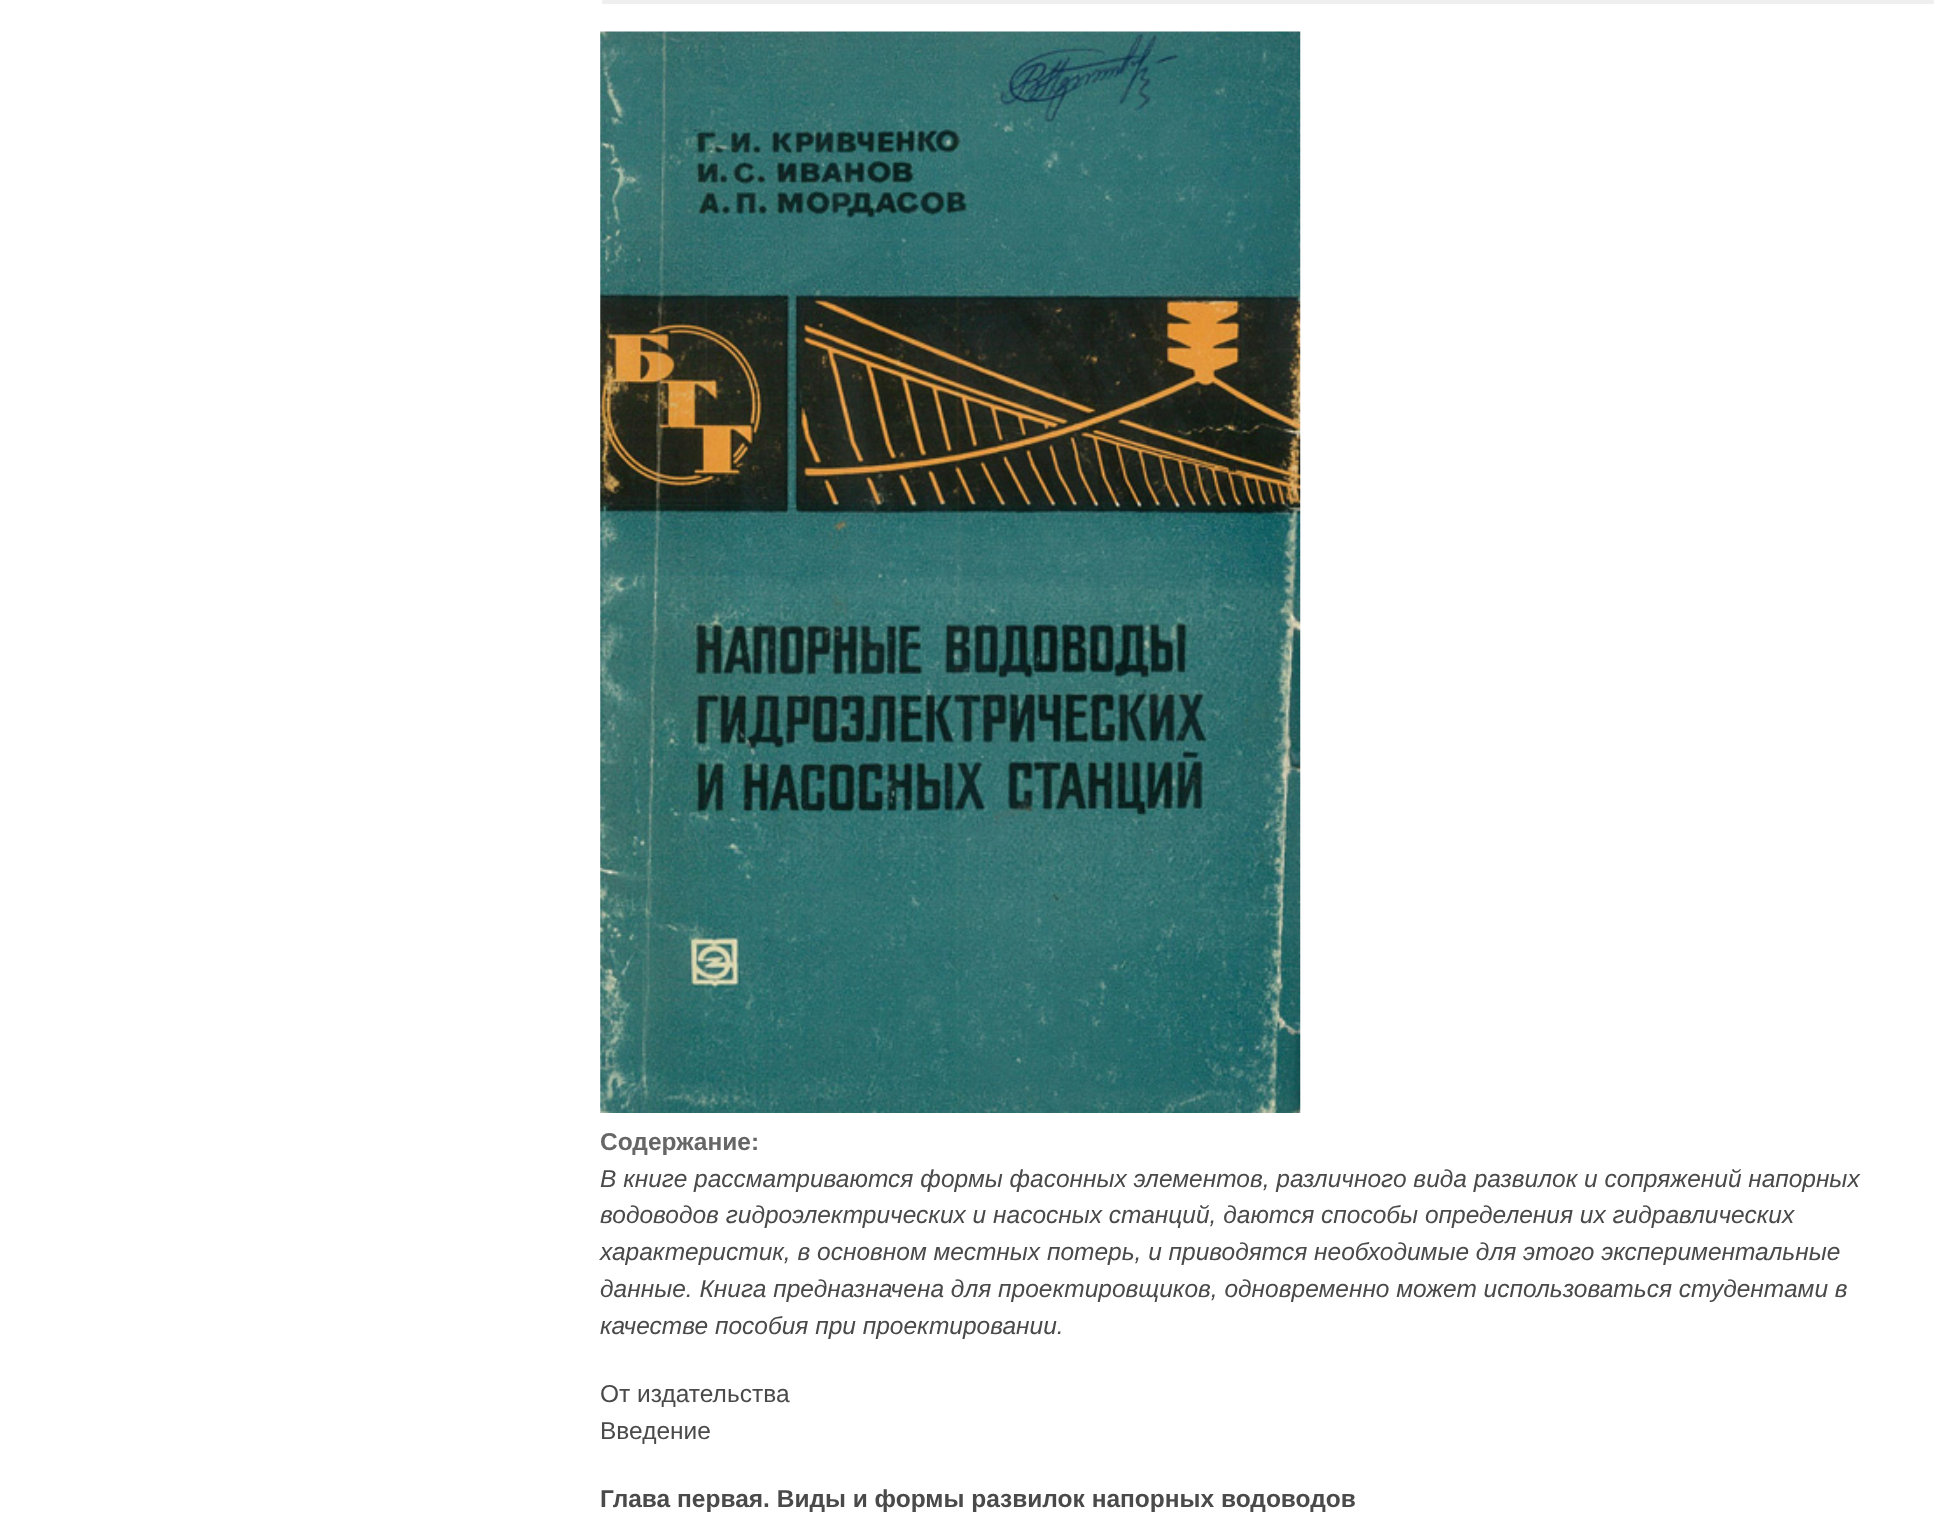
(async () => {
    const canvas = document.querySelector("canvas");
    canvas.width = 1935;
    canvas.height = 1532;
    const context = canvas.getContext("2d");
    context.miterLimit = 4;
    context.fontKerning = "normal";
    function write(s, x, y, font, color) {
        context.font = font;
        context.fillStyle = color;
        context.fillText(s, x, y);
    }
    function block(x, y, w, h, color) {
        context.fillStyle = color;
        context.fillRect(x, y, w, h);
    }
    async function photo(src, x, y, w, h) {
        const img = new Image();
        img.src = src;
        await img.decode();
        context.drawImage(img, x, y, w, h);
    }

    block(0, 0, 1935, 1532, "rgb(255, 255, 255)");
    block(600, 0, 1335, 4, "rgb(239, 239, 239)");
    block(1934, 0, 1, 5, "rgb(255, 255, 255)");
    block(600, 0, 2, 5, "rgb(255, 255, 255)");
    await photo("media/1.png", 600, 31, 701, 1082);
    write("Содержание:", 600, 1150, "bold 24.5px Liberation Sans", "rgb(102, 102, 102)");
    write("В книге рассматриваются формы фасонных элементов, различного вида развилок и сопряжений напорных", 600, 1187, "italic 24.5px Liberation Sans", "rgb(74, 74, 74)");
    write("водоводов гидроэлектрических и насосных станций, даются способы определения их гидравлических", 600, 1223, "italic 24.5px Liberation Sans", "rgb(74, 74, 74)");
    write("характеристик, в основном местных потерь, и приводятся необходимые для этого экспериментальные", 600, 1260, "italic 24.5px Liberation Sans", "rgb(74, 74, 74)");
    write("данные. Книга предназначена для проектировщиков, одновременно может использоваться студентами в", 600, 1297, "italic 24.5px Liberation Sans", "rgb(74, 74, 74)");
    write("качестве пособия при проектировании.", 600, 1334, "italic 24.5px Liberation Sans", "rgb(74, 74, 74)");
    write("От издательства", 600, 1402, "24.5px Liberation Sans", "rgb(74, 74, 74)");
    write("Введение", 600, 1439, "24.5px Liberation Sans", "rgb(74, 74, 74)");
    write("Глава первая. Виды и формы развилок напорных водоводов", 600, 1507, "bold 24.5px Liberation Sans", "rgb(74, 74, 74)");
})();
